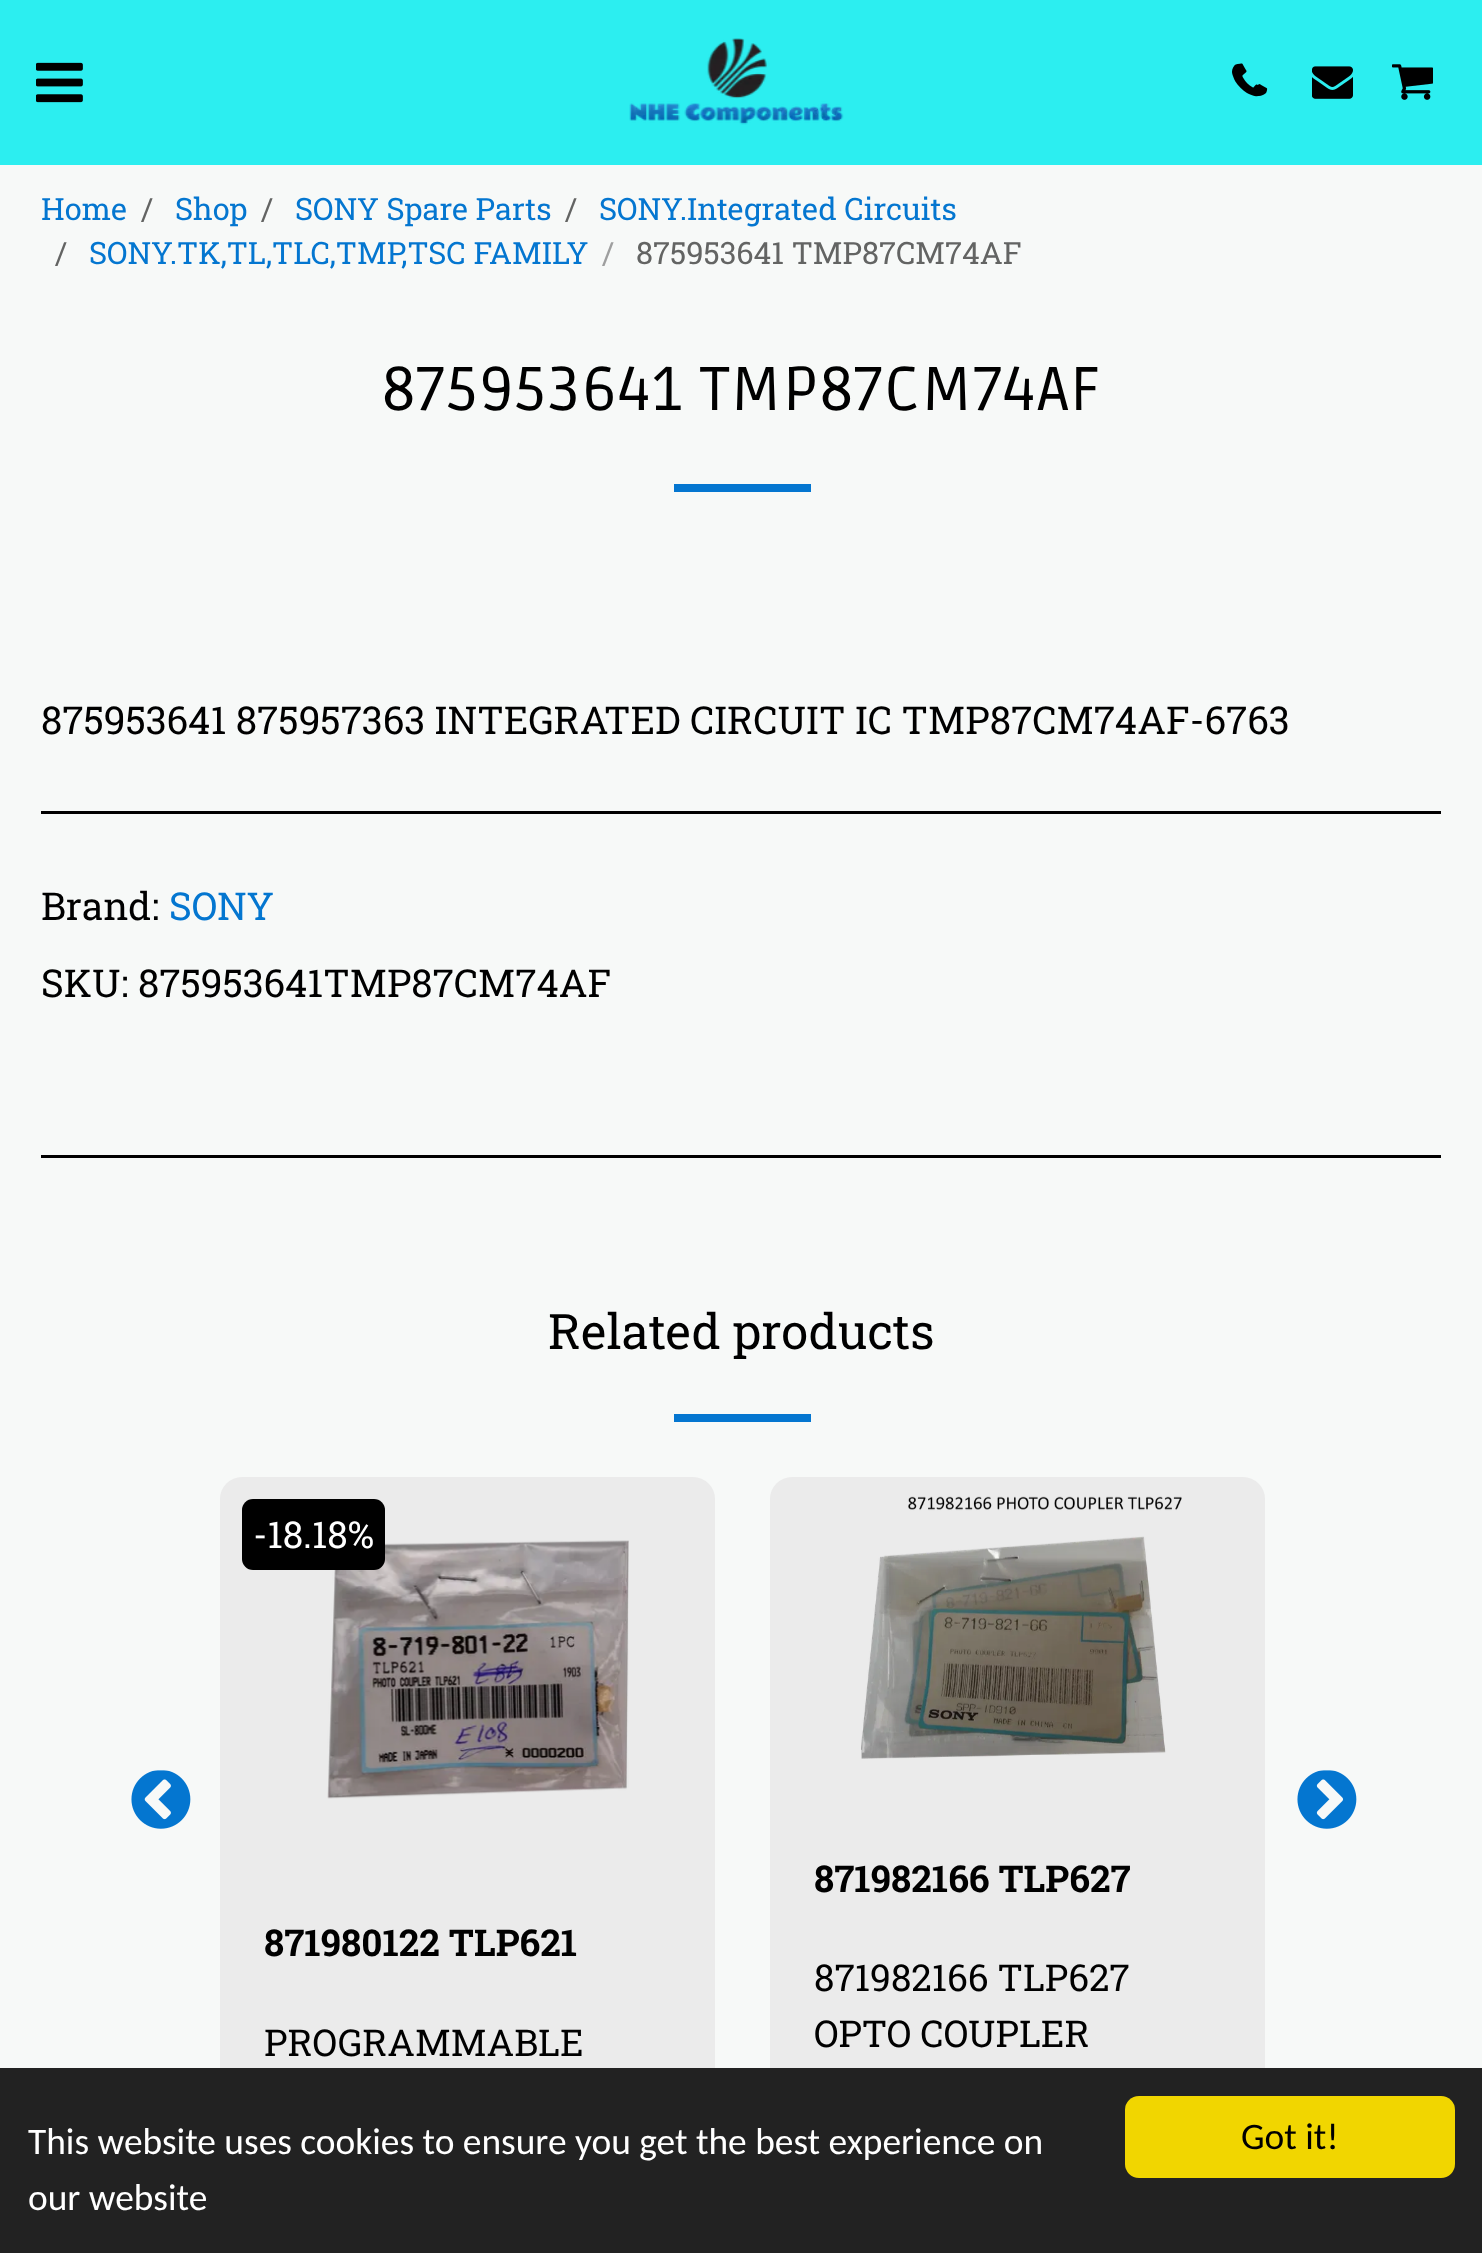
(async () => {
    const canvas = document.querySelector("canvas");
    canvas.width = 1482;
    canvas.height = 2253;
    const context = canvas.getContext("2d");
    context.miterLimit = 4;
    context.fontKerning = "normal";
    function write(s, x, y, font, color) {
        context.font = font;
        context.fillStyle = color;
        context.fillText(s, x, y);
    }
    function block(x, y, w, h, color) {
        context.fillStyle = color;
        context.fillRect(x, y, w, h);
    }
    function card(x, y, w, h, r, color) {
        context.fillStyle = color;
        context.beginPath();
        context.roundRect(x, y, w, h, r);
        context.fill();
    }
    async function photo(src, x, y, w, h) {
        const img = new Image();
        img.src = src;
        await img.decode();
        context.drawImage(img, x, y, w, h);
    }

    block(0, 0, 1482, 2253, "rgb(247, 249, 248)");
    block(0, 0, 1482, 165, "rgb(44, 238, 240)");
    await photo("media/1.png", 36, 62, 47, 41);
    await photo("media/2.png", 629, 38, 215, 87);
    await photo("media/3.png", 1237, 63, 31, 33);
    await photo("media/4.png", 1232, 63, 29, 34);
    await photo("media/5.png", 1312, 66, 41, 33);
    await photo("media/6.png", 1392, 64, 41, 36);
    write("Home", 41, 220, "30.75px Roboto Slab", "rgb(4, 118, 208)");
    write("/", 141, 220, "30.75px Roboto Slab", "rgb(99, 100, 99)");
    write("Shop", 175, 220, "30.75px Roboto Slab", "rgb(4, 118, 208)");
    write("/", 261, 220, "30.75px Roboto Slab", "rgb(99, 100, 99)");
    write("SONY Spare Parts", 295, 220, "30.75px Roboto Slab", "rgb(4, 118, 208)");
    write("/", 565, 220, "30.75px Roboto Slab", "rgb(99, 100, 99)");
    write("SONY.Integrated Circuits", 599, 220, "30.75px Roboto Slab", "rgb(4, 118, 208)");
    write("/", 55, 264, "30.75px Roboto Slab", "rgb(99, 100, 99)");
    write("SONY.TK,TL,TLC,TMP,TSC FAMILY", 89, 264, "30.75px Roboto Slab", "rgb(4, 118, 208)");
    write("/", 602, 264, "30.75px Roboto Slab", "rgb(158, 159, 159)");
    write("875953641 TMP87CM74AF", 636, 264, "30.75px Roboto Slab", "rgb(99, 100, 99)");
    context.letterSpacing = "1.4px";
    write("875953641 TMP87CM74AF", 382, 410, "61.75px Ruda", "rgb(0, 0, 0)");
    block(674, 484, 137, 8, "rgb(4, 118, 208)");
    context.letterSpacing = "0px";
    write("875953641 875957363 INTEGRATED CIRCUIT IC TMP87CM74AF-6763", 41, 734, "38.5px Roboto Slab", "rgb(0, 0, 0)");
    block(41, 811, 1400, 3, "rgb(0, 0, 0)");
    write("Brand:", 41, 920, "38.5px Roboto Slab", "rgb(0, 0, 0)");
    write("SONY", 169, 920, "38.5px Roboto Slab", "rgb(4, 118, 208)");
    write("SKU: 875953641TMP87CM74AF", 41, 997, "38.5px Roboto Slab", "rgb(0, 0, 0)");
    block(41, 1155, 1400, 3, "rgb(0, 0, 0)");
    write("Related products", 548, 1349, "48.75px Roboto Slab", "rgb(0, 0, 0)");
    block(674, 1414, 137, 8, "rgb(4, 118, 208)");
    await photo("media/7.png", 131, 1770, 60, 59);
    card(220, 1477, 495, 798, 22, "rgb(235, 235, 235)");
    await photo("media/8.png", 327, 1540, 302, 259);
    card(242, 1499, 143, 71, 11, "rgb(0, 0, 0)");
    write("-18.18%", 253, 1548, "37px Roboto Slab", "rgb(255, 255, 255)");
    write("871980122 TLP621", 264, 1956, "bold 37px Roboto Slab", "rgb(0, 0, 0)");
    write("PROGRAMMABLE", 264, 2056, "37px Roboto Slab", "rgb(0, 0, 0)");
    card(770, 1477, 495, 707, 22, "rgb(235, 235, 235)");
    await photo("media/9.png", 861, 1496, 321, 263);
    write("871982166 TLP627", 814, 1892, "bold 37px Roboto Slab", "rgb(0, 0, 0)");
    write("871982166 TLP627", 814, 1991, "37px Roboto Slab", "rgb(0, 0, 0)");
    write("OPTO COUPLER", 814, 2047, "37px Roboto Slab", "rgb(0, 0, 0)");
    await photo("media/10.png", 1297, 1770, 60, 59);
    block(0, 2068, 1482, 185, "rgb(34, 34, 34)");
    write("This website uses cookies to ensure you get the best experience on", 28, 2154, "37.4px Carlito", "rgb(255, 255, 255)");
    write("our website", 28, 2210, "37.4px Carlito", "rgb(255, 255, 255)");
    card(1125, 2096, 330, 82, 14, "rgb(241, 214, 0)");
    write("Got it!", 1241, 2149, "37.4px Carlito", "rgb(0, 0, 0)");
})();
